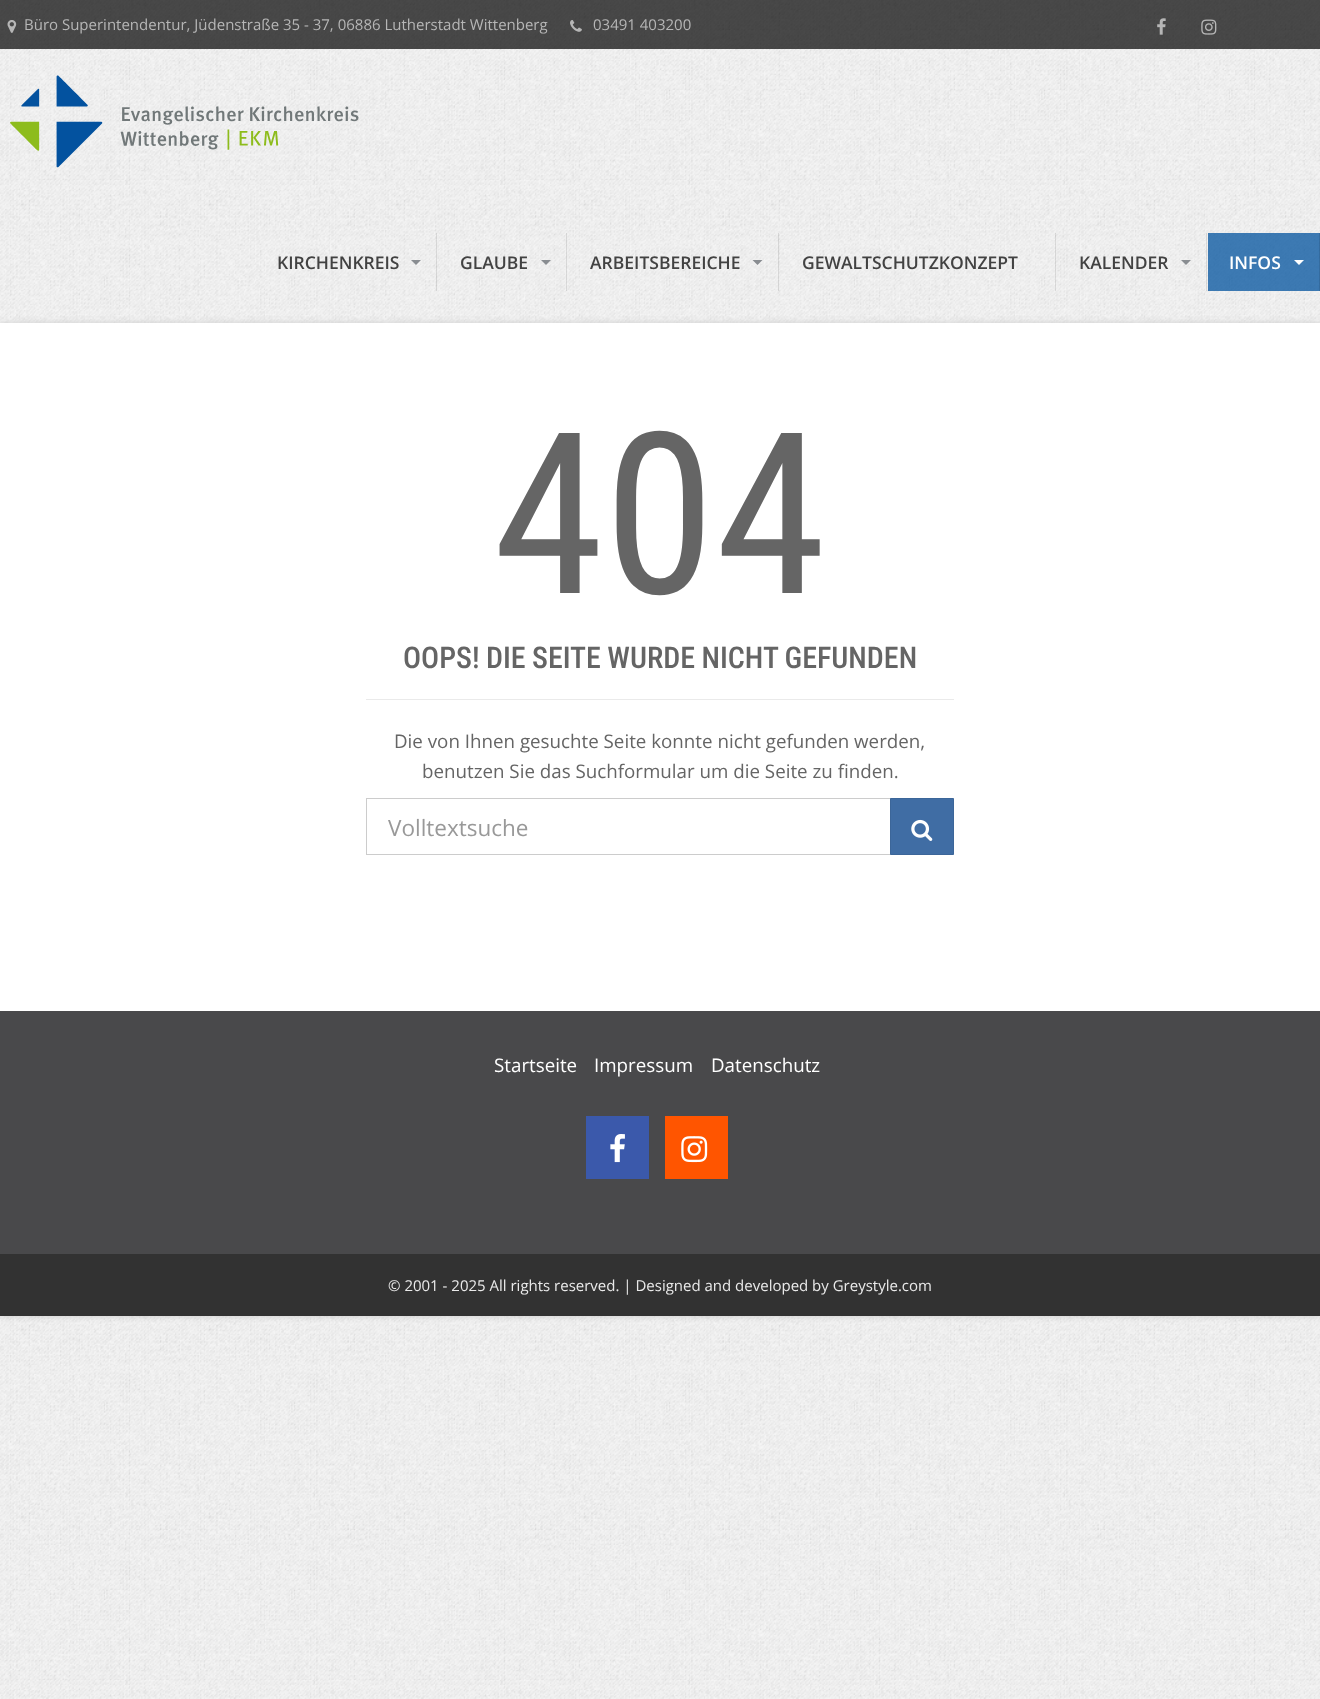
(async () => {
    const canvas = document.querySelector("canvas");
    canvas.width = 1320;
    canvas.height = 1699;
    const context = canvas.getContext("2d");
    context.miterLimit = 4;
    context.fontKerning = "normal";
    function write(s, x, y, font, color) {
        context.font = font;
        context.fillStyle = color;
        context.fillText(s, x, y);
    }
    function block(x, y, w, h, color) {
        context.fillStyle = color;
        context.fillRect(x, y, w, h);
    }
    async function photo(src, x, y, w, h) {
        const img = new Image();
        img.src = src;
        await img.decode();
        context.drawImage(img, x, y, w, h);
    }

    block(0, 0, 1320, 1699, "rgb(255, 255, 255)");
    await photo("media/1.png", 0, 0, 1320, 1699);
    block(0, 0, 1320, 49, "rgba(0, 0, 0, 0.7)");
    await photo("media/2.png", 7, 20, 10, 13);
    write("Büro Superintendentur, Jüdenstraße 35 - 37, 06886 Lutherstadt Wittenberg", 24, 30, "15px Open Sans", "rgb(182, 182, 182)");
    await photo("media/3.png", 570, 20, 12, 12);
    write("03491 403200", 593, 30, "15px Open Sans", "rgb(182, 182, 182)");
    await photo("media/4.png", 1157, 18, 9, 17);
    await photo("media/5.png", 1201, 19, 16, 16);
    await photo("media/6.png", 10, 75, 349, 93);
    block(436, 233, 1, 58, "rgba(0, 0, 0, 0.1)");
    write("KIRCHENKREIS", 277, 269, "600 17.5px Open Sans", "rgb(66, 66, 66)");
    context.fillStyle = "rgb(137, 141, 145)";
    context.beginPath();
    context.moveTo(411, 260);
    context.lineTo(421, 260);
    context.lineTo(416, 265);
    context.closePath();
    context.fill();
    block(566, 233, 1, 58, "rgba(0, 0, 0, 0.1)");
    write("GLAUBE", 460, 269, "600 17.5px Open Sans", "rgb(66, 66, 66)");
    context.fillStyle = "rgb(137, 141, 145)";
    context.beginPath();
    context.moveTo(541, 260);
    context.lineTo(551, 260);
    context.lineTo(546, 265);
    context.closePath();
    context.fill();
    block(778, 233, 1, 58, "rgba(0, 0, 0, 0.1)");
    write("ARBEITSBEREICHE", 590, 269, "600 17.5px Open Sans", "rgb(66, 66, 66)");
    context.fillStyle = "rgb(137, 141, 145)";
    context.beginPath();
    context.moveTo(752.5, 260);
    context.lineTo(762.5, 260);
    context.lineTo(757.5, 265);
    context.closePath();
    context.fill();
    block(1055, 233, 1, 58, "rgba(0, 0, 0, 0.1)");
    write("GEWALTSCHUTZKONZEPT", 802, 269, "600 17.5px Open Sans", "rgb(66, 66, 66)");
    block(1206, 233, 1, 58, "rgba(0, 0, 0, 0.1)");
    write("KALENDER", 1079, 269, "600 17.5px Open Sans", "rgb(66, 66, 66)");
    context.fillStyle = "rgb(137, 141, 145)";
    context.beginPath();
    context.moveTo(1181, 260);
    context.lineTo(1191, 260);
    context.lineTo(1186, 265);
    context.closePath();
    context.fill();
    block(1208, 233, 112, 58, "rgba(0, 81, 158, 0.75)");
    block(1319, 233, 1, 58, "rgba(0, 0, 0, 0.1)");
    write("INFOS", 1229, 269, "600 17.5px Open Sans", "rgb(255, 255, 255)");
    context.beginPath();
    context.moveTo(1294, 260);
    context.lineTo(1304, 260);
    context.lineTo(1299, 265);
    context.closePath();
    context.fill();
    context.fillStyle = "rgb(204, 204, 204)";
    context.filter = "blur(3px)";
    context.beginPath();
    context.rect(0, 323, 1320, 993);
    context.fill();
    context.filter = "none";
    block(0, 323, 1320, 688, "rgb(255, 255, 255)");
    write("404", 493, 593, "225px Roboto Condensed", "rgb(101, 101, 101)");
    context.wordSpacing = "-0.5px";
    write("OOPS! DIE SEITE WURDE NICHT GEFUNDEN", 403, 668, "500 30px Roboto Condensed", "rgb(101, 101, 101)");
    block(366, 699, 588, 1, "rgb(234, 234, 234)");
    context.wordSpacing = "0px";
    write("Die von Ihnen gesuchte Seite konnte nicht gefunden werden,", 394, 748, "18.75px Open Sans", "rgb(101, 101, 101)");
    write("benutzen Sie das Suchformular um die Seite zu finden.", 422, 778, "18.75px Open Sans", "rgb(101, 101, 101)");
    context.strokeStyle = "rgb(204, 204, 204)";
    context.strokeRect(366.5, 798.5, 524, 56);
    write("Volltextsuche", 388, 836, "22.5px Open Sans", "rgb(153, 153, 153)");
    context.fillStyle = "rgb(64, 109, 164)";
    context.beginPath();
    context.rect(890.5, 798.5, 63, 56);
    context.fill();
    context.strokeStyle = "rgb(60, 102, 153)";
    context.stroke();
    await photo("media/7.png", 911, 819, 22, 22);
    block(0, 1011, 1320, 243, "rgb(73, 73, 75)");
    write("Startseite", 494, 1072, "18.75px Open Sans", "rgb(255, 255, 255)");
    write("Impressum", 594, 1072, "18.75px Open Sans", "rgb(255, 255, 255)");
    write("Datenschutz", 711, 1072, "18.75px Open Sans", "rgb(255, 255, 255)");
    block(586, 1116, 63, 63, "rgb(59, 89, 171)");
    await photo("media/8.png", 610, 1134, 15, 29);
    block(665, 1116, 63, 63, "rgb(255, 85, 0)");
    await photo("media/9.png", 681, 1136, 27, 27);
    block(0, 1254, 1320, 62, "rgb(50, 50, 50)");
    write("© 2001 - 2025 All rights reserved. | Designed and developed by Greystyle.com", 388, 1291, "15px Open Sans", "rgb(234, 234, 234)");
})();
